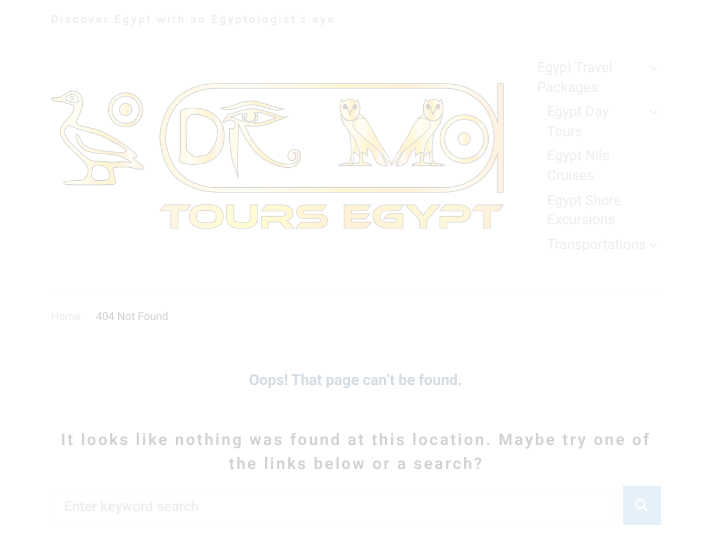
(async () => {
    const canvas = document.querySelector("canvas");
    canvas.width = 712;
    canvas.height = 552;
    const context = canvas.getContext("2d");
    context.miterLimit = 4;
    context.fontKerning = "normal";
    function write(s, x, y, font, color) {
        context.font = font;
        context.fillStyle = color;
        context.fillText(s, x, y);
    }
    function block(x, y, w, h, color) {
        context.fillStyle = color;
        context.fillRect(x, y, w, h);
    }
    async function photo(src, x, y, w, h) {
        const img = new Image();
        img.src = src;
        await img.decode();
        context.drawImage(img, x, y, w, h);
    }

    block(0, 0, 712, 552, "rgb(255, 255, 255)");
    context.letterSpacing = "2px";
    write("Discover Egypt with an Egyptologist's eye", 51, 23, "600 11px Roboto", "rgb(238, 238, 239)");
    await photo("media/1.png", 51, 83, 453, 146);
    context.letterSpacing = "0px";
    write("Egypt Travel", 537, 72, "14px Roboto", "rgb(238, 238, 239)");
    write("Packages", 537, 92, "14px Roboto", "rgb(238, 238, 239)");
    await photo("media/2.png", 649, 66, 9, 5);
    write("Egypt Day", 547, 116, "14px Roboto", "rgb(238, 238, 239)");
    write("Tours", 547, 136, "14px Roboto", "rgb(238, 238, 239)");
    await photo("media/2.png", 649, 110, 9, 5);
    write("Egypt Nile", 547, 160, "14px Roboto", "rgb(238, 238, 239)");
    write("Cruises", 547, 180, "14px Roboto", "rgb(238, 238, 239)");
    write("Egypt Shore", 547, 205, "14px Roboto", "rgb(238, 238, 239)");
    write("Excursions", 547, 224, "14px Roboto", "rgb(238, 238, 239)");
    write("Transportations", 547, 249, "14px Roboto", "rgb(238, 238, 239)");
    await photo("media/2.png", 649, 243, 9, 5);
    block(51, 291, 610, 1, "rgb(251, 252, 252)");
    write("Home", 51, 320, "11px Roboto", "rgb(238, 238, 239)");
    write("404 Not Found", 96, 320, "11px Roboto", "rgb(209, 209, 209)");
    write("Oops! That page can’t be found.", 249, 385, "bold 15px Roboto", "rgb(211, 220, 228)");
    context.letterSpacing = "2px";
    write("It looks like nothing was found at this location. Maybe try one of", 61, 445, "600 16px Roboto", "rgb(209, 209, 209)");
    write("the links below or a search?", 229, 469, "600 16px Roboto", "rgb(209, 209, 209)");
    context.beginPath();
    context.roundRect(51.5, 489.5, 561, 33, 3.5);
    context.strokeStyle = "rgb(251, 252, 252)";
    context.stroke();
    context.letterSpacing = "0px";
    write("Enter keyword search", 64, 511, "600 14px Roboto", "rgb(238, 238, 239)");
    block(623, 486, 38, 39, "rgb(229, 240, 249)");
    await photo("media/3.png", 635, 498, 13, 14);
})();
